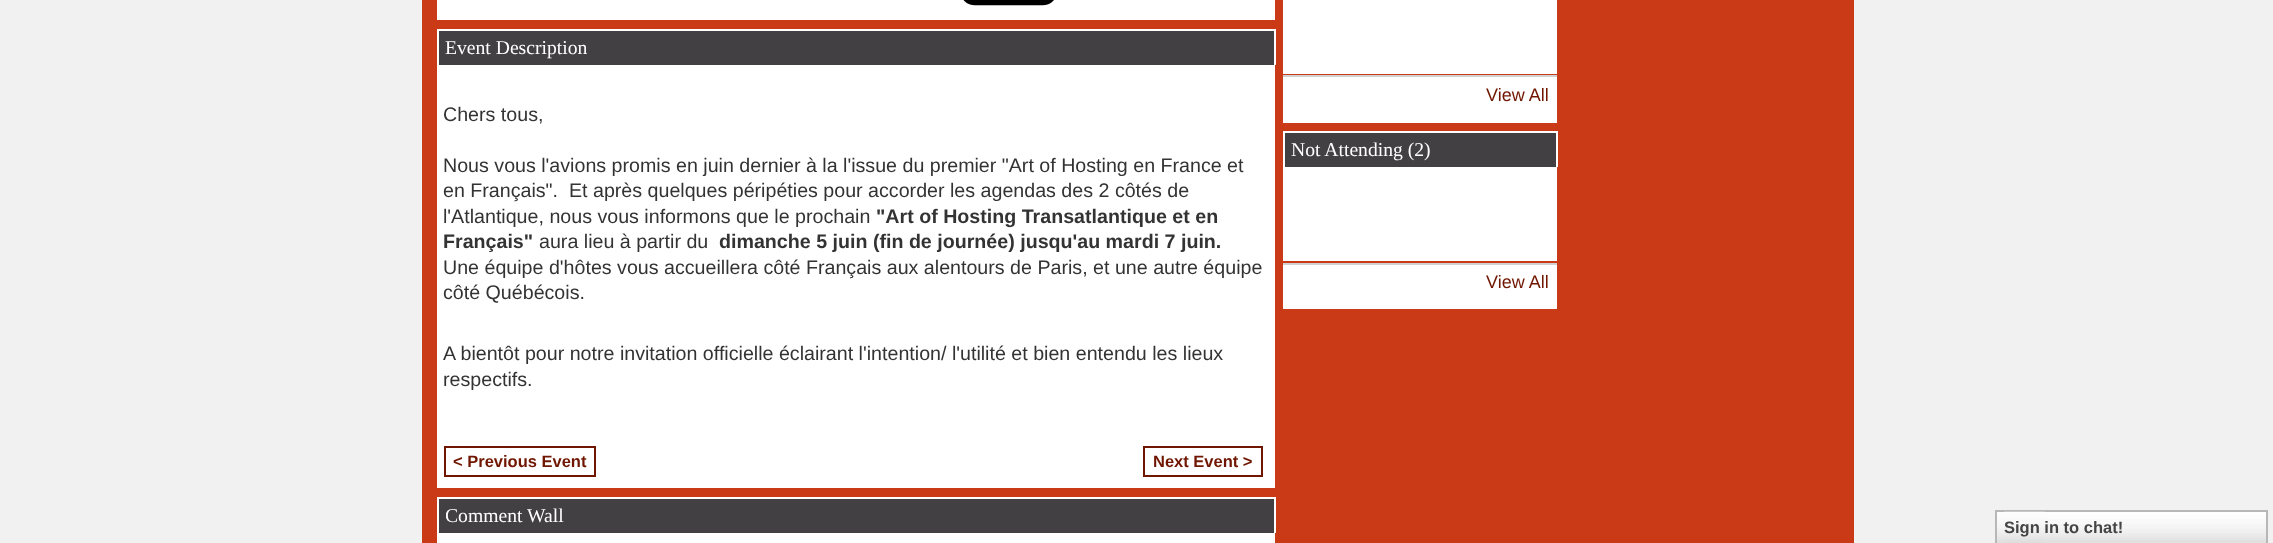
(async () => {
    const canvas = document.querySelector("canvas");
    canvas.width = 2273;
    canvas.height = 543;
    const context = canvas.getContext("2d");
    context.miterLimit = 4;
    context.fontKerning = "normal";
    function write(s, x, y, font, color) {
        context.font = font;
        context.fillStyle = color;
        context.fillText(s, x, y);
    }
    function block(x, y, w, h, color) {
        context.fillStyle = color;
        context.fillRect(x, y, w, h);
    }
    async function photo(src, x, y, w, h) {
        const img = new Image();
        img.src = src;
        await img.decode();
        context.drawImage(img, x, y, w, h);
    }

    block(0, 0, 2273, 543, "rgb(241, 241, 241)");
    block(422, 0, 1432, 543, "rgb(202, 58, 23)");
    block(437, 0, 838, 20, "rgb(255, 255, 255)");
    await photo("media/1.png", 963, 0, 91, 6);
    block(439, 31, 835, 34, "rgb(66, 64, 67)");
    block(437, 29, 838, 2, "rgb(255, 255, 255)");
    block(1274, 29, 2, 36, "rgb(255, 255, 255)");
    block(437, 29, 2, 36, "rgb(255, 255, 255)");
    write("Event Description", 445, 54, "19.65px Liberation Serif", "rgb(255, 255, 255)");
    block(437, 65, 838, 423, "rgb(255, 255, 255)");
    write("Chers tous,", 443, 121, "19.65px Liberation Sans", "rgb(51, 51, 51)");
    write("Nous vous l'avions promis en juin dernier à la l'issue du premier \"Art of Hosting en France et", 443, 172, "19.65px Liberation Sans", "rgb(51, 51, 51)");
    write("en Français\".  Et après quelques péripéties pour accorder les agendas des 2 côtés de", 443, 197, "19.65px Liberation Sans", "rgb(51, 51, 51)");
    write("l'Atlantique, nous vous informons que le prochain", 443, 223, "19.65px Liberation Sans", "rgb(51, 51, 51)");
    write("\"Art of Hosting Transatlantique et en", 876, 223, "bold 19.65px Liberation Sans", "rgb(51, 51, 51)");
    write("Français\"", 443, 248, "bold 19.65px Liberation Sans", "rgb(51, 51, 51)");
    write("aura lieu à partir du", 539, 248, "19.65px Liberation Sans", "rgb(51, 51, 51)");
    write("dimanche 5 juin (fin de journée) jusqu'au mardi 7 juin.", 719, 248, "bold 19.65px Liberation Sans", "rgb(51, 51, 51)");
    write("Une équipe d'hôtes vous accueillera côté Français aux alentours de Paris, et une autre équipe", 443, 274, "19.65px Liberation Sans", "rgb(51, 51, 51)");
    write("côté Québécois.", 443, 299, "19.65px Liberation Sans", "rgb(51, 51, 51)");
    write("A bientôt pour notre invitation officielle éclairant l'intention/ l'utilité et bien entendu les lieux", 443, 360, "19.65px Liberation Sans", "rgb(51, 51, 51)");
    write("respectifs.", 443, 386, "19.65px Liberation Sans", "rgb(51, 51, 51)");
    context.strokeStyle = "rgb(112, 22, 0)";
    context.lineWidth = 2;
    context.strokeRect(445, 447, 150, 29);
    write("< Previous Event", 453, 467, "bold 16.5px Liberation Sans", "rgb(112, 22, 0)");
    context.strokeRect(1144, 447, 118, 29);
    write("Next Event >", 1153, 467, "bold 16.5px Liberation Sans", "rgb(112, 22, 0)");
    block(439, 499, 835, 34, "rgb(66, 64, 67)");
    block(437, 497, 838, 2, "rgb(255, 255, 255)");
    block(1274, 497, 2, 36, "rgb(255, 255, 255)");
    block(437, 497, 2, 36, "rgb(255, 255, 255)");
    context.save();
    context.beginPath();
    context.rect(446, 503, 118, 25);
    context.clip();
    write("Comment Wall", 445, 522, "19.65px Liberation Serif", "rgb(255, 255, 255)");
    context.restore();
    block(437, 533, 838, 10, "rgb(255, 255, 255)");
    block(1283, 0, 274, 74, "rgb(255, 255, 255)");
    block(1283, 77, 274, 46, "rgb(255, 255, 255)");
    block(1283, 75, 274, 2, "rgb(210, 210, 210)");
    write("View All", 1486, 101, "18px Liberation Sans", "rgb(112, 22, 0)");
    block(1285, 133, 271, 34, "rgb(66, 64, 67)");
    block(1283, 131, 274, 2, "rgb(255, 255, 255)");
    block(1556, 131, 2, 36, "rgb(255, 255, 255)");
    block(1283, 131, 2, 36, "rgb(255, 255, 255)");
    write("Not Attending (2)", 1291, 156, "19.65px Liberation Serif", "rgb(255, 255, 255)");
    block(1283, 167, 274, 94, "rgb(255, 255, 255)");
    block(1283, 265, 274, 44, "rgb(255, 255, 255)");
    block(1283, 263, 274, 2, "rgb(210, 210, 210)");
    write("View All", 1486, 288, "18px Liberation Sans", "rgb(112, 22, 0)");
    await photo("media/2.png", 1997, 512, 269, 31);
    context.strokeStyle = "rgb(183, 183, 183)";
    context.strokeRect(1996, 511, 271, 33);
    await photo("media/3.png", 2004, 511, 41, 32);
    write("Sign in to chat!", 2004, 533, "bold 16.5px Liberation Sans", "rgb(69, 69, 69)");
})();
